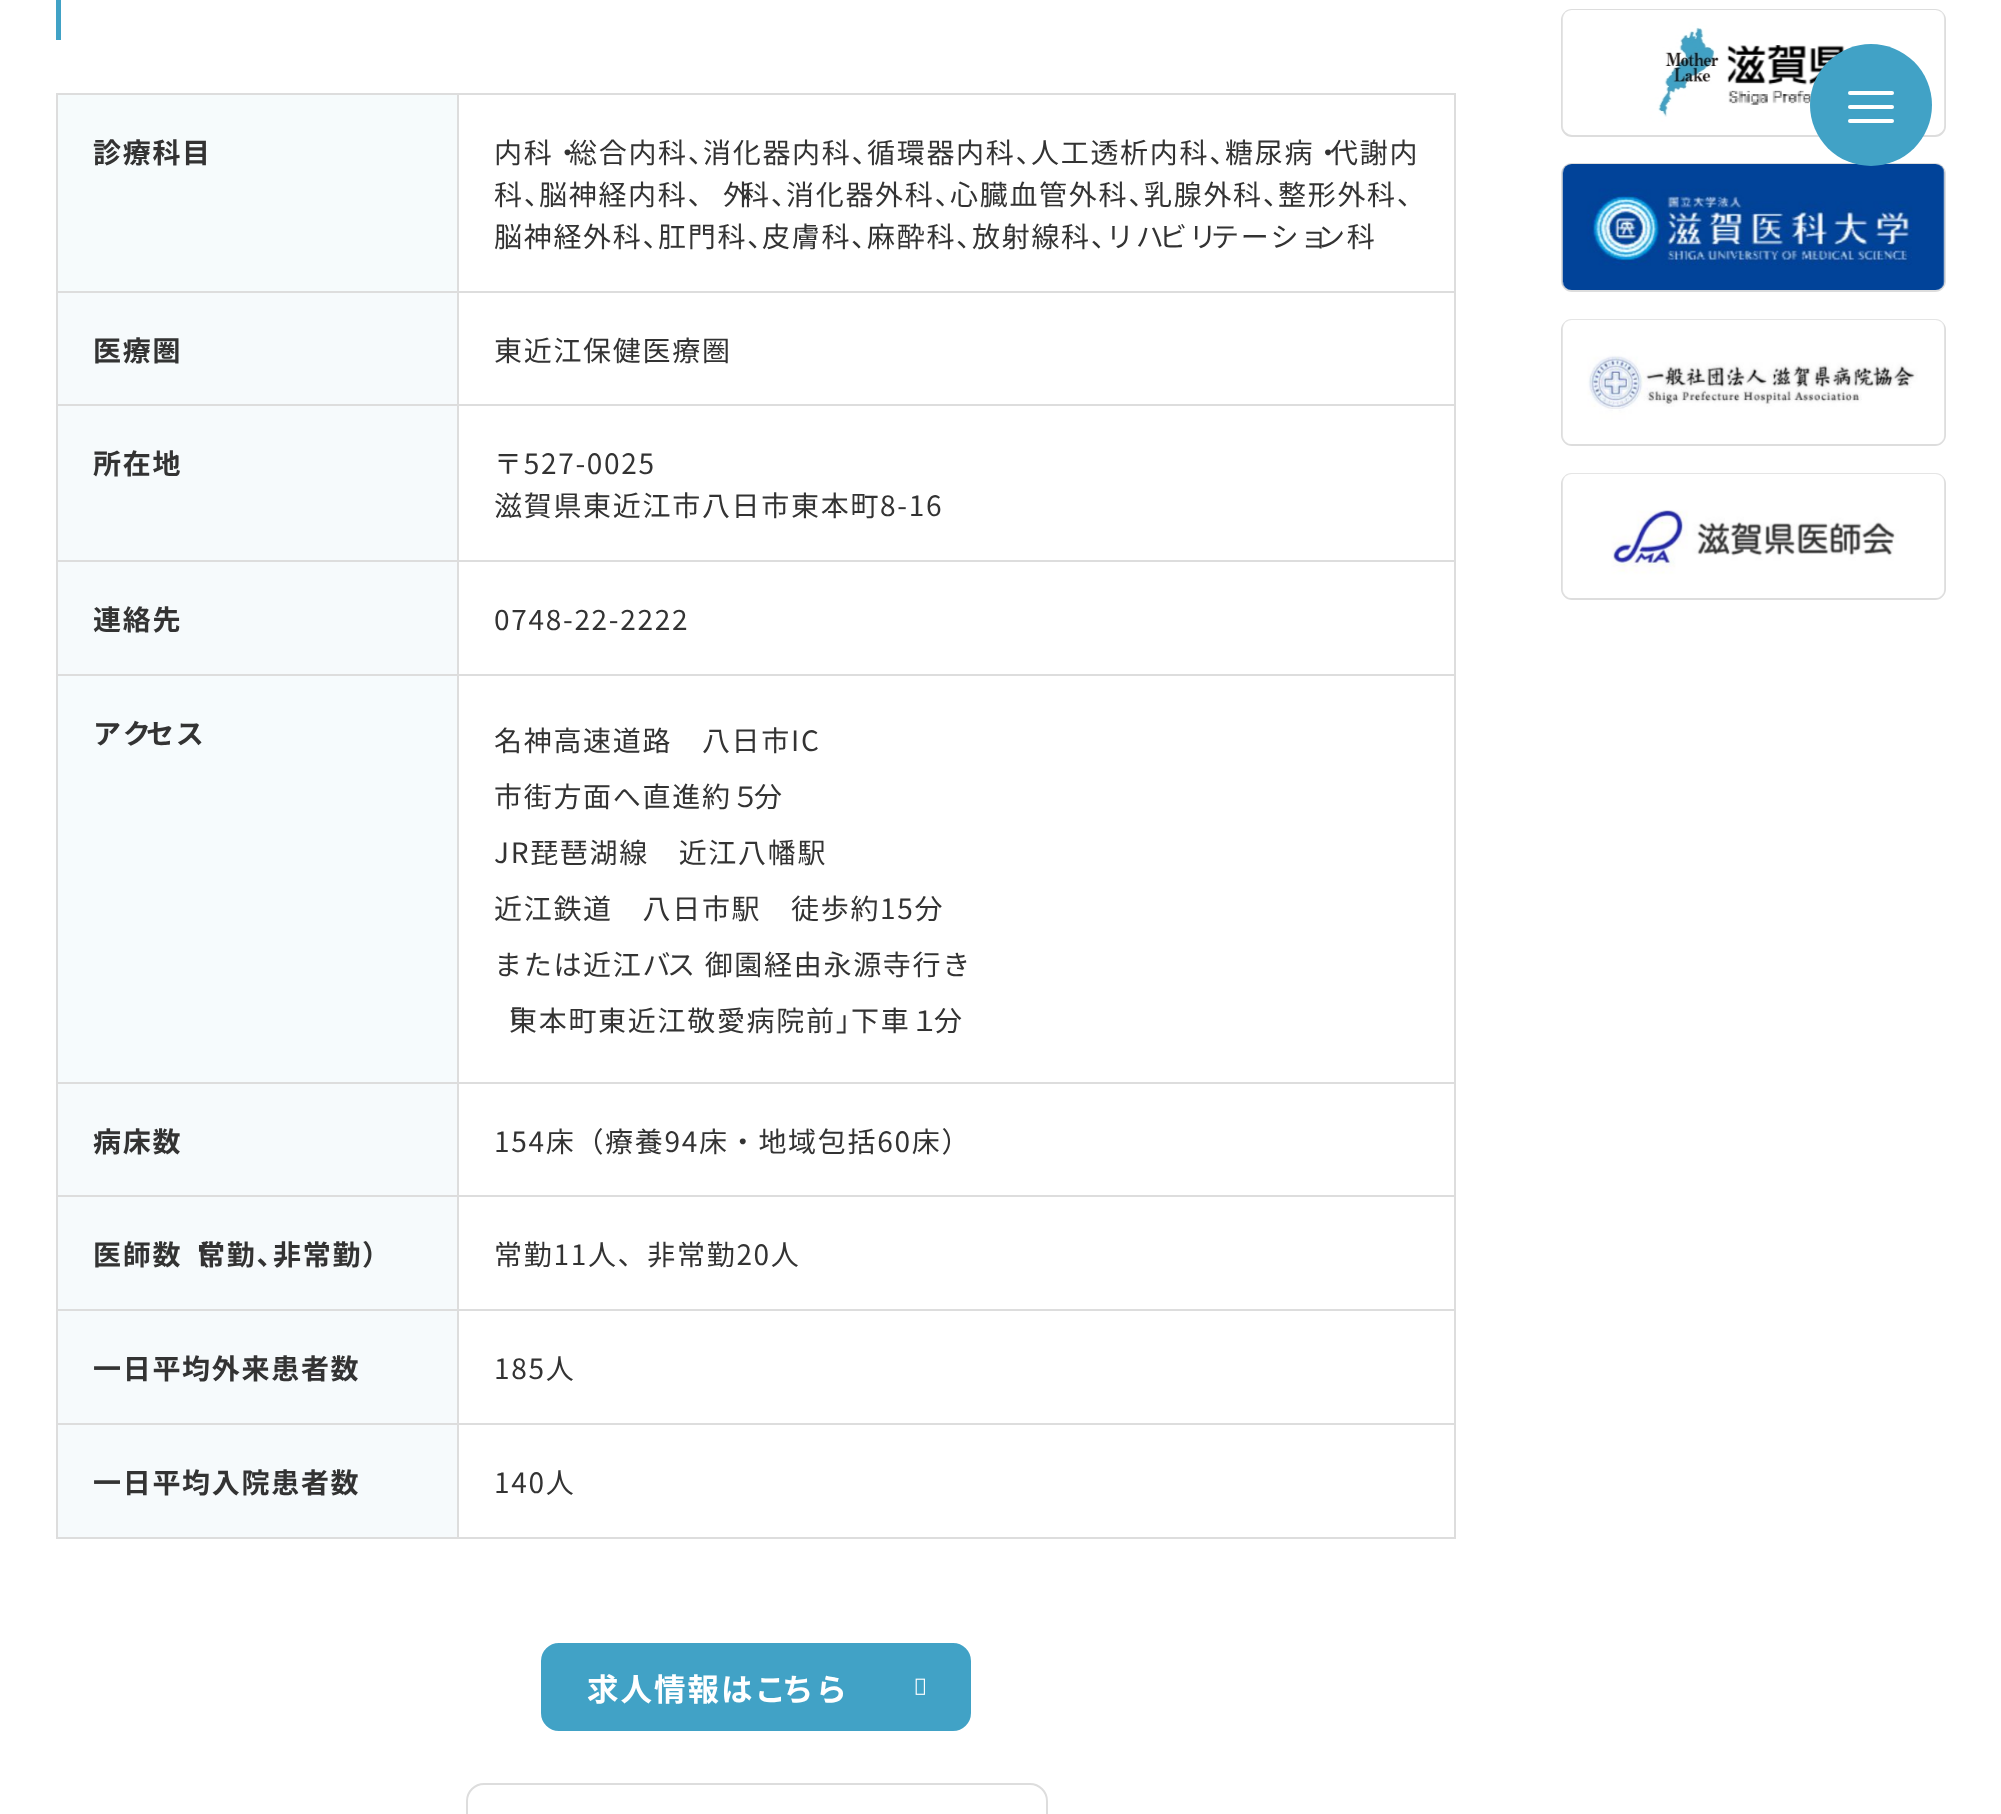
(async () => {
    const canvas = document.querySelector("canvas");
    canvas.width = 2001;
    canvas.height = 1814;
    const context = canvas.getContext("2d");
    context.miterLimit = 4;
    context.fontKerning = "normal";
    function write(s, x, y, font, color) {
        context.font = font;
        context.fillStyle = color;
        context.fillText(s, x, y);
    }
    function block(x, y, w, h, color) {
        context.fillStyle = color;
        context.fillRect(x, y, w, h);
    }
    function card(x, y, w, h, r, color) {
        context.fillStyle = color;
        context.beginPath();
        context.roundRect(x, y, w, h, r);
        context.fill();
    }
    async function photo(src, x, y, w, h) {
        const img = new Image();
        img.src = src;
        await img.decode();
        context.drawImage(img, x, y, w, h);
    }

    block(0, 0, 2001, 1814, "rgb(255, 255, 255)");
    context.beginPath();
    context.roundRect(1562, 10, 383, 126, 10);
    context.strokeStyle = "rgb(221, 221, 221)";
    context.lineWidth = 2;
    context.stroke();
    await photo("media/2.png", 1562, 10, 383, 122);
    context.beginPath();
    context.roundRect(1562, 164, 383, 127, 10);
    context.stroke();
    await photo("media/3.png", 1562, 164, 383, 126);
    context.fillStyle = "rgb(65, 162, 198)";
    context.beginPath();
    context.arc(1871, 105, 61, 0, Math.PI * 2);
    context.fill();
    card(1848, 91, 46, 4, 2, "rgb(255, 255, 255)");
    card(1848, 105, 46, 4, 2, "rgb(255, 255, 255)");
    card(1848, 119, 46, 4, 2, "rgb(255, 255, 255)");
    block(56, 0, 5, 40, "rgb(65, 162, 198)");
    block(58, 95, 399, 196, "rgb(246, 251, 252)");
    block(457, 93, 999, 2, "rgb(221, 221, 221)");
    block(457, 291, 999, 2, "rgb(221, 221, 221)");
    block(457, 404, 999, 2, "rgb(221, 221, 221)");
    block(457, 560, 999, 2, "rgb(221, 221, 221)");
    block(457, 674, 999, 2, "rgb(221, 221, 221)");
    block(457, 1082, 999, 2, "rgb(221, 221, 221)");
    block(457, 1195, 999, 2, "rgb(221, 221, 221)");
    block(457, 1309, 999, 2, "rgb(221, 221, 221)");
    block(457, 1423, 999, 2, "rgb(221, 221, 221)");
    block(1454, 1423, 2, 115, "rgb(221, 221, 221)");
    block(457, 1537, 999, 2, "rgb(221, 221, 221)");
    block(457, 1423, 2, 115, "rgb(221, 221, 221)");
    block(56, 1423, 403, 2, "rgb(221, 221, 221)");
    block(457, 1309, 2, 116, "rgb(221, 221, 221)");
    block(56, 1309, 403, 2, "rgb(221, 221, 221)");
    block(457, 1195, 2, 116, "rgb(221, 221, 221)");
    block(56, 1195, 403, 2, "rgb(221, 221, 221)");
    block(457, 1082, 2, 115, "rgb(221, 221, 221)");
    block(56, 1082, 403, 2, "rgb(221, 221, 221)");
    block(457, 674, 2, 409, "rgb(221, 221, 221)");
    block(56, 674, 403, 2, "rgb(221, 221, 221)");
    block(457, 560, 2, 116, "rgb(221, 221, 221)");
    block(56, 560, 403, 2, "rgb(221, 221, 221)");
    block(457, 404, 2, 158, "rgb(221, 221, 221)");
    block(56, 404, 403, 2, "rgb(221, 221, 221)");
    block(457, 291, 2, 115, "rgb(221, 221, 221)");
    block(56, 291, 403, 2, "rgb(221, 221, 221)");
    block(457, 93, 2, 199, "rgb(221, 221, 221)");
    block(56, 93, 403, 2, "rgb(221, 221, 221)");
    block(56, 1537, 403, 2, "rgb(221, 221, 221)");
    block(56, 1423, 2, 115, "rgb(221, 221, 221)");
    block(56, 1309, 2, 116, "rgb(221, 221, 221)");
    block(56, 1195, 2, 116, "rgb(221, 221, 221)");
    block(56, 1082, 2, 115, "rgb(221, 221, 221)");
    block(56, 674, 2, 409, "rgb(221, 221, 221)");
    block(56, 560, 2, 116, "rgb(221, 221, 221)");
    block(56, 404, 2, 158, "rgb(221, 221, 221)");
    block(56, 291, 2, 115, "rgb(221, 221, 221)");
    block(56, 93, 2, 199, "rgb(221, 221, 221)");
    context.letterSpacing = "1.7px";
    write("診療科目", 93, 163, "bold 28px Noto Sans JP", "rgb(51, 51, 51)");
    block(1454, 1309, 2, 116, "rgb(221, 221, 221)");
    block(1454, 1195, 2, 116, "rgb(221, 221, 221)");
    block(1454, 1082, 2, 115, "rgb(221, 221, 221)");
    block(1454, 674, 2, 409, "rgb(221, 221, 221)");
    block(1454, 560, 2, 116, "rgb(221, 221, 221)");
    block(1454, 404, 2, 158, "rgb(221, 221, 221)");
    block(1454, 291, 2, 115, "rgb(221, 221, 221)");
    block(1454, 93, 2, 199, "rgb(221, 221, 221)");
    write("内科・", 494, 163, "28px Noto Sans JP", "rgb(51, 51, 51)");
    write("総合内科、", 569, 163, "28px Noto Sans JP", "rgb(51, 51, 51)");
    write("消化器内科、", 703, 163, "28px Noto Sans JP", "rgb(51, 51, 51)");
    write("循環器内科、", 867, 163, "28px Noto Sans JP", "rgb(51, 51, 51)");
    write("人工透析内科、", 1031, 163, "28px Noto Sans JP", "rgb(51, 51, 51)");
    write("糖尿病・", 1225, 163, "28px Noto Sans JP", "rgb(51, 51, 51)");
    write("代謝内", 1330, 163, "28px Noto Sans JP", "rgb(51, 51, 51)");
    write("科、", 494, 205, "28px Noto Sans JP", "rgb(51, 51, 51)");
    write("脳神経内科、", 539, 205, "28px Noto Sans JP", "rgb(51, 51, 51)");
    write("外", 723, 205, "28px Noto Sans JP", "rgb(51, 51, 51)");
    write("科、", 741, 205, "28px Noto Sans JP", "rgb(51, 51, 51)");
    write("消化器外科、", 786, 205, "28px Noto Sans JP", "rgb(51, 51, 51)");
    write("心臓血管外科、", 950, 205, "28px Noto Sans JP", "rgb(51, 51, 51)");
    write("乳腺外科、", 1144, 205, "28px Noto Sans JP", "rgb(51, 51, 51)");
    write("整形外科、", 1278, 205, "28px Noto Sans JP", "rgb(51, 51, 51)");
    write("脳神経外科、", 494, 247, "28px Noto Sans JP", "rgb(51, 51, 51)");
    write("肛門科、", 658, 247, "28px Noto Sans JP", "rgb(51, 51, 51)");
    write("皮膚科、", 762, 247, "28px Noto Sans JP", "rgb(51, 51, 51)");
    write("麻酔科、", 867, 247, "28px Noto Sans JP", "rgb(51, 51, 51)");
    write("放射線科、", 972, 247, "28px Noto Sans JP", "rgb(51, 51, 51)");
    write("リハ", 1106, 247, "28px Noto Sans JP", "rgb(51, 51, 51)");
    write("ビリ", 1159, 247, "28px Noto Sans JP", "rgb(51, 51, 51)");
    write("テーショ", 1211, 247, "28px Noto Sans JP", "rgb(51, 51, 51)");
    write("ン科", 1317, 247, "28px Noto Sans JP", "rgb(51, 51, 51)");
    block(58, 293, 399, 111, "rgb(246, 250, 252)");
    write("医療圏", 93, 361, "bold 28px Noto Sans JP", "rgb(51, 51, 51)");
    write("東近江保健医療圏", 494, 361, "28px Noto Sans JP", "rgb(51, 51, 51)");
    block(58, 406, 399, 154, "rgb(246, 250, 252)");
    write("所在地", 93, 474, "bold 28px Noto Sans JP", "rgb(51, 51, 51)");
    write("〒527-0025", 494, 474, "28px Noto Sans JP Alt", "rgb(51, 51, 51)");
    write("滋賀県東近江市八日市東本町8-16", 494, 516, "28px Noto Sans JP", "rgb(51, 51, 51)");
    block(58, 562, 399, 112, "rgb(246, 250, 252)");
    write("連絡先", 93, 630, "bold 28px Noto Sans JP", "rgb(51, 51, 51)");
    write("0748-22-2222", 494, 630, "28px Noto Sans JP", "rgb(51, 51, 51)");
    block(58, 676, 399, 406, "rgb(246, 251, 253)");
    write("アク", 93, 744, "bold 28px Noto Sans JP", "rgb(51, 51, 51)");
    write("セス", 146, 744, "bold 28px Noto Sans JP", "rgb(51, 51, 51)");
    write("名神高速道路　八日市IC", 494, 751, "28px Noto Sans JP", "rgb(51, 51, 51)");
    write("市街方面へ直進約５", 494, 807, "28px Noto Sans JP", "rgb(51, 51, 51)");
    write("分", 754, 807, "28px Noto Sans JP", "rgb(51, 51, 51)");
    write("JR琵琶湖線　近江八幡駅", 494, 863, "28px Noto Sans JP", "rgb(51, 51, 51)");
    write("近江鉄道　八日市駅　徒歩約15分", 494, 919, "28px Noto Sans JP", "rgb(51, 51, 51)");
    write("または近江バ", 494, 975, "28px Noto Sans JP", "rgb(51, 51, 51)");
    write("ス 御園経由永源寺行き", 667, 975, "28px Noto Sans JP", "rgb(51, 51, 51)");
    write("「", 494, 1031, "28px Noto Sans JP", "rgb(51, 51, 51)");
    write("東本町東近江敬愛病院前」", 509, 1031, "28px Noto Sans JP", "rgb(51, 51, 51)");
    write("下車１", 851, 1031, "28px Noto Sans JP", "rgb(51, 51, 51)");
    write("分", 934, 1031, "28px Noto Sans JP", "rgb(51, 51, 51)");
    block(58, 1084, 399, 111, "rgb(246, 250, 252)");
    write("病床数", 93, 1152, "bold 28px Noto Sans JP", "rgb(51, 51, 51)");
    write("154床（療養94床・地域包括60床）", 494, 1152, "28px Noto Sans JP Alt", "rgb(51, 51, 51)");
    block(58, 1197, 399, 112, "rgb(246, 250, 252)");
    write("医師数（", 93, 1265, "bold 28px Noto Sans JP", "rgb(51, 51, 51)");
    write("常勤、", 197, 1265, "bold 28px Noto Sans JP", "rgb(51, 51, 51)");
    write("非常勤）", 273, 1265, "bold 28px Noto Sans JP", "rgb(51, 51, 51)");
    write("常勤11人、非常勤20人", 494, 1265, "28px Noto Sans JP Alt", "rgb(51, 51, 51)");
    block(58, 1311, 399, 112, "rgb(246, 250, 252)");
    write("一日平均外来患者数", 93, 1379, "bold 28px Noto Sans JP", "rgb(51, 51, 51)");
    write("185人", 494, 1379, "28px Noto Sans JP", "rgb(51, 51, 51)");
    block(58, 1425, 399, 112, "rgb(246, 250, 252)");
    write("一日平均入院患者数", 93, 1493, "bold 28px Noto Sans JP", "rgb(51, 51, 51)");
    write("140人", 494, 1493, "28px Noto Sans JP", "rgb(51, 51, 51)");
    context.fillStyle = "rgb(65, 162, 198)";
    context.beginPath();
    context.roundRect(542, 1644, 428, 86, 17);
    context.fill();
    context.strokeStyle = "rgb(65, 162, 198)";
    context.stroke();
    context.letterSpacing = "2px";
    write("求人情報はこ", 587, 1701, "bold 31.5px Noto Sans JP", "rgb(255, 255, 255)");
    write("ちら", 782, 1701, "bold 31.5px Noto Sans JP", "rgb(255, 255, 255)");
    await photo("media/1.png", 915, 1678, 10, 17);
    context.beginPath();
    context.roundRect(467, 1784, 580, 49, 17);
    context.strokeStyle = "rgb(221, 221, 221)";
    context.stroke();
    context.beginPath();
    context.roundRect(1562, 320, 383, 125, 10);
    context.stroke();
    await photo("media/4.png", 1562, 319, 383, 125);
    context.beginPath();
    context.roundRect(1562, 474, 383, 125, 10);
    context.stroke();
    await photo("media/5.png", 1562, 473, 383, 125);
})();
